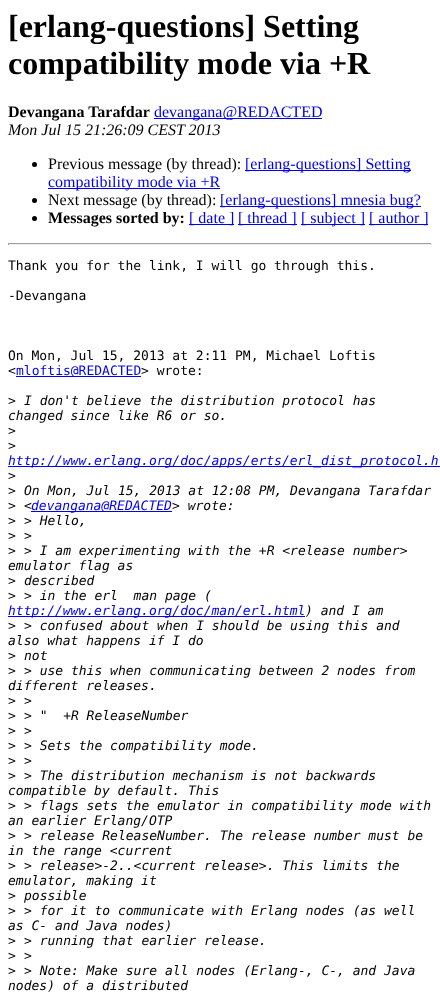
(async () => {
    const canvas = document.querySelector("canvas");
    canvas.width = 440;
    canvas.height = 999;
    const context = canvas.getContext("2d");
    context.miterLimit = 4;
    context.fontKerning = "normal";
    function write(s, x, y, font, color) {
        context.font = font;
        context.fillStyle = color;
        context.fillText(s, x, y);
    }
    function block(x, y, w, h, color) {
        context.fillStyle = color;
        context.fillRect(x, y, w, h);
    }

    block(0, 0, 440, 999, "rgb(255, 255, 255)");
    write("[erlang-questions] Setting", 8, 37, "bold 32px Liberation Serif", "rgb(0, 0, 0)");
    write("compatibility mode via +R", 8, 74, "bold 32px Liberation Serif", "rgb(0, 0, 0)");
    write("Devangana Tarafdar", 8, 117, "bold 16px Liberation Serif", "rgb(0, 0, 0)");
    block(154, 118, 168, 1, "rgb(0, 0, 238)");
    write("devangana@REDACTED", 154, 117, "16px Liberation Serif", "rgb(0, 0, 238)");
    write("Mon Jul 15 21:26:09 CEST 2013", 8, 135, "italic 16px Liberation Serif", "rgb(0, 0, 0)");
    context.beginPath();
    context.arc(34.5, 164.5, 2.5, 0, Math.PI * 2);
    context.fill();
    write("Previous message (by thread):", 48, 169, "16px Liberation Serif", "rgb(0, 0, 0)");
    block(245, 170, 166, 1, "rgb(0, 0, 238)");
    write("[erlang-questions] Setting", 245, 169, "16px Liberation Serif", "rgb(0, 0, 238)");
    block(48, 188, 172, 1, "rgb(0, 0, 238)");
    write("compatibility mode via +R", 48, 187, "16px Liberation Serif", "rgb(0, 0, 238)");
    context.fillStyle = "rgb(0, 0, 0)";
    context.beginPath();
    context.arc(34.5, 200.5, 2.5, 0, Math.PI * 2);
    context.fill();
    write("Next message (by thread):", 48, 205, "16px Liberation Serif", "rgb(0, 0, 0)");
    block(220, 206, 201, 1, "rgb(0, 0, 238)");
    write("[erlang-questions] mnesia bug?", 220, 205, "16px Liberation Serif", "rgb(0, 0, 238)");
    context.fillStyle = "rgb(0, 0, 0)";
    context.beginPath();
    context.arc(34.5, 218.5, 2.5, 0, Math.PI * 2);
    context.fill();
    write("Messages sorted by:", 48, 223, "bold 16px Liberation Serif", "rgb(0, 0, 0)");
    block(189, 224, 45, 1, "rgb(0, 0, 238)");
    write("[ date ]", 189, 223, "16px Liberation Serif", "rgb(0, 0, 238)");
    block(238, 224, 59, 1, "rgb(0, 0, 238)");
    write("[ thread ]", 238, 223, "16px Liberation Serif", "rgb(0, 0, 238)");
    block(301, 224, 64, 1, "rgb(0, 0, 238)");
    write("[ subject ]", 301, 223, "16px Liberation Serif", "rgb(0, 0, 238)");
    block(369, 224, 59, 1, "rgb(0, 0, 238)");
    write("[ author ]", 369, 223, "16px Liberation Serif", "rgb(0, 0, 238)");
    block(8, 243, 424, 1, "rgb(159, 159, 159)");
    block(431, 243, 1, 2, "rgb(238, 238, 238)");
    block(8, 244, 424, 1, "rgb(238, 238, 238)");
    block(8, 243, 1, 2, "rgb(159, 159, 159)");
    write("Thank you for the link, I will go through this.", 8, 270, "13px DejaVu Sans Mono", "rgb(0, 0, 0)");
    write("-Devangana", 8, 300, "13px DejaVu Sans Mono", "rgb(0, 0, 0)");
    write("On Mon, Jul 15, 2013 at 2:11 PM, Michael Loftis", 8, 360, "13px DejaVu Sans Mono", "rgb(0, 0, 0)");
    write("<", 8, 375, "13px DejaVu Sans Mono", "rgb(0, 0, 0)");
    block(16, 376, 125, 1, "rgb(0, 0, 238)");
    write("mloftis@REDACTED", 16, 375, "13px DejaVu Sans Mono", "rgb(0, 0, 238)");
    write("> wrote:", 141, 375, "13px DejaVu Sans Mono", "rgb(0, 0, 0)");
    write(">", 8, 405, "13px DejaVu Sans Mono", "rgb(0, 0, 0)");
    write("I don't believe the distribution protocol has", 24, 405, "italic 13px DejaVu Sans Mono", "rgb(0, 0, 0)");
    write("changed since like R6 or so.", 8, 420, "italic 13px DejaVu Sans Mono", "rgb(0, 0, 0)");
    write(">", 8, 435, "13px DejaVu Sans Mono", "rgb(0, 0, 0)");
    write(">", 8, 450, "13px DejaVu Sans Mono", "rgb(0, 0, 0)");
    block(8, 466, 432, 1, "rgb(0, 0, 238)");
    write("http://www.erlang.org/doc/apps/erts/erl_dist_protocol.h", 8, 465, "italic 13px DejaVu Sans Mono", "rgb(0, 0, 238)");
    write(">", 8, 480, "13px DejaVu Sans Mono", "rgb(0, 0, 0)");
    write(">", 8, 495, "13px DejaVu Sans Mono", "rgb(0, 0, 0)");
    write("On Mon, Jul 15, 2013 at 12:08 PM, Devangana Tarafdar", 24, 495, "italic 13px DejaVu Sans Mono", "rgb(0, 0, 0)");
    write(">", 8, 510, "13px DejaVu Sans Mono", "rgb(0, 0, 0)");
    write("<", 24, 510, "italic 13px DejaVu Sans Mono", "rgb(0, 0, 0)");
    block(31, 511, 141, 1, "rgb(0, 0, 238)");
    write("devangana@REDACTED", 31, 510, "italic 13px DejaVu Sans Mono", "rgb(0, 0, 238)");
    write("> wrote:", 172, 510, "italic 13px DejaVu Sans Mono", "rgb(0, 0, 0)");
    write(">", 8, 525, "13px DejaVu Sans Mono", "rgb(0, 0, 0)");
    write("> Hello,", 24, 525, "italic 13px DejaVu Sans Mono", "rgb(0, 0, 0)");
    write(">", 8, 540, "13px DejaVu Sans Mono", "rgb(0, 0, 0)");
    write(">", 24, 540, "italic 13px DejaVu Sans Mono", "rgb(0, 0, 0)");
    write(">", 8, 555, "13px DejaVu Sans Mono", "rgb(0, 0, 0)");
    write("> I am experimenting with the +R <release number>", 24, 555, "italic 13px DejaVu Sans Mono", "rgb(0, 0, 0)");
    write("emulator flag as", 8, 570, "italic 13px DejaVu Sans Mono", "rgb(0, 0, 0)");
    write(">", 8, 585, "13px DejaVu Sans Mono", "rgb(0, 0, 0)");
    write("described", 24, 585, "italic 13px DejaVu Sans Mono", "rgb(0, 0, 0)");
    write(">", 8, 600, "13px DejaVu Sans Mono", "rgb(0, 0, 0)");
    write("> in the erl  man page (", 24, 600, "italic 13px DejaVu Sans Mono", "rgb(0, 0, 0)");
    block(8, 616, 297, 1, "rgb(0, 0, 238)");
    write("http://www.erlang.org/doc/man/erl.html", 8, 615, "italic 13px DejaVu Sans Mono", "rgb(0, 0, 238)");
    write(") and I am", 305, 615, "italic 13px DejaVu Sans Mono", "rgb(0, 0, 0)");
    write(">", 8, 630, "13px DejaVu Sans Mono", "rgb(0, 0, 0)");
    write("> confused about when I should be using this and", 24, 630, "italic 13px DejaVu Sans Mono", "rgb(0, 0, 0)");
    write("also what happens if I do", 8, 645, "italic 13px DejaVu Sans Mono", "rgb(0, 0, 0)");
    write(">", 8, 660, "13px DejaVu Sans Mono", "rgb(0, 0, 0)");
    write("not", 24, 660, "italic 13px DejaVu Sans Mono", "rgb(0, 0, 0)");
    write(">", 8, 675, "13px DejaVu Sans Mono", "rgb(0, 0, 0)");
    write("> use this when communicating between 2 nodes from", 24, 675, "italic 13px DejaVu Sans Mono", "rgb(0, 0, 0)");
    write("different releases.", 8, 690, "italic 13px DejaVu Sans Mono", "rgb(0, 0, 0)");
    write(">", 8, 705, "13px DejaVu Sans Mono", "rgb(0, 0, 0)");
    write(">", 24, 705, "italic 13px DejaVu Sans Mono", "rgb(0, 0, 0)");
    write(">", 8, 720, "13px DejaVu Sans Mono", "rgb(0, 0, 0)");
    write("> \"  +R ReleaseNumber", 24, 720, "italic 13px DejaVu Sans Mono", "rgb(0, 0, 0)");
    write(">", 8, 735, "13px DejaVu Sans Mono", "rgb(0, 0, 0)");
    write(">", 24, 735, "italic 13px DejaVu Sans Mono", "rgb(0, 0, 0)");
    write(">", 8, 750, "13px DejaVu Sans Mono", "rgb(0, 0, 0)");
    write("> Sets the compatibility mode.", 24, 750, "italic 13px DejaVu Sans Mono", "rgb(0, 0, 0)");
    write(">", 8, 765, "13px DejaVu Sans Mono", "rgb(0, 0, 0)");
    write(">", 24, 765, "italic 13px DejaVu Sans Mono", "rgb(0, 0, 0)");
    write(">", 8, 780, "13px DejaVu Sans Mono", "rgb(0, 0, 0)");
    write("> The distribution mechanism is not backwards", 24, 780, "italic 13px DejaVu Sans Mono", "rgb(0, 0, 0)");
    write("compatible by default. This", 8, 795, "italic 13px DejaVu Sans Mono", "rgb(0, 0, 0)");
    write(">", 8, 810, "13px DejaVu Sans Mono", "rgb(0, 0, 0)");
    write("> flags sets the emulator in compatibility mode with", 24, 810, "italic 13px DejaVu Sans Mono", "rgb(0, 0, 0)");
    write("an earlier Erlang/OTP", 8, 825, "italic 13px DejaVu Sans Mono", "rgb(0, 0, 0)");
    write(">", 8, 840, "13px DejaVu Sans Mono", "rgb(0, 0, 0)");
    write("> release ReleaseNumber. The release number must be", 24, 840, "italic 13px DejaVu Sans Mono", "rgb(0, 0, 0)");
    write("in the range <current", 8, 855, "italic 13px DejaVu Sans Mono", "rgb(0, 0, 0)");
    write(">", 8, 870, "13px DejaVu Sans Mono", "rgb(0, 0, 0)");
    write("> release>-2..<current release>. This limits the", 24, 870, "italic 13px DejaVu Sans Mono", "rgb(0, 0, 0)");
    write("emulator, making it", 8, 885, "italic 13px DejaVu Sans Mono", "rgb(0, 0, 0)");
    write(">", 8, 900, "13px DejaVu Sans Mono", "rgb(0, 0, 0)");
    write("possible", 24, 900, "italic 13px DejaVu Sans Mono", "rgb(0, 0, 0)");
    write(">", 8, 915, "13px DejaVu Sans Mono", "rgb(0, 0, 0)");
    write("> for it to communicate with Erlang nodes (as well", 24, 915, "italic 13px DejaVu Sans Mono", "rgb(0, 0, 0)");
    write("as C- and Java nodes)", 8, 930, "italic 13px DejaVu Sans Mono", "rgb(0, 0, 0)");
    write(">", 8, 945, "13px DejaVu Sans Mono", "rgb(0, 0, 0)");
    write("> running that earlier release.", 24, 945, "italic 13px DejaVu Sans Mono", "rgb(0, 0, 0)");
    write(">", 8, 960, "13px DejaVu Sans Mono", "rgb(0, 0, 0)");
    write(">", 24, 960, "italic 13px DejaVu Sans Mono", "rgb(0, 0, 0)");
    write(">", 8, 975, "13px DejaVu Sans Mono", "rgb(0, 0, 0)");
    write("> Note: Make sure all nodes (Erlang-, C-, and Java", 24, 975, "italic 13px DejaVu Sans Mono", "rgb(0, 0, 0)");
    write("nodes) of a distributed", 8, 990, "italic 13px DejaVu Sans Mono", "rgb(0, 0, 0)");
})();
